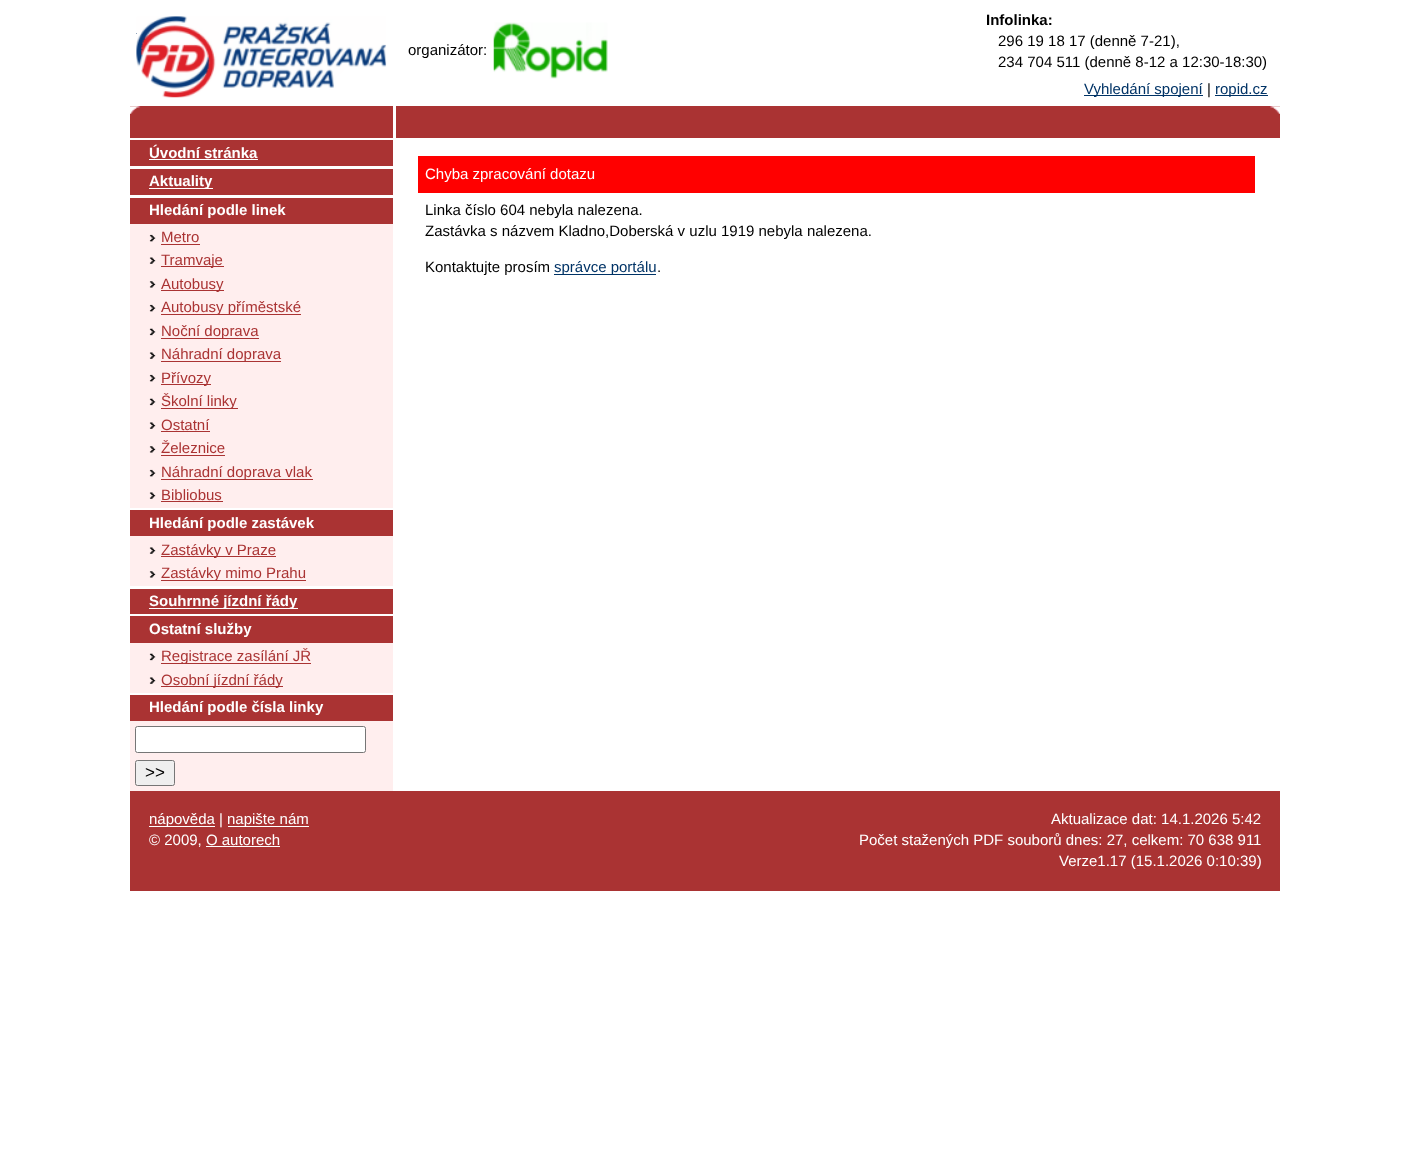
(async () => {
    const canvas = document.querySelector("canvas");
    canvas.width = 1410;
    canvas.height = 1166;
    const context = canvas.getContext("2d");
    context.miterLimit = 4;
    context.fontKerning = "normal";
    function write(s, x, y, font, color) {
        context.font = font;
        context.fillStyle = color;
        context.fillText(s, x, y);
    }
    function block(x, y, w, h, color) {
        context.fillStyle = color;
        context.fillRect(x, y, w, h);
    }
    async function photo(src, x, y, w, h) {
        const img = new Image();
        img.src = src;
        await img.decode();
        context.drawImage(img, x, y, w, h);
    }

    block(0, 0, 1410, 1166, "rgb(255, 255, 255)");
    block(136, 33, 1, 1, "rgb(0, 51, 102)");
    await photo("media/1.png", 136, 16, 251, 82);
    write("organizátor:", 408, 55, "15px Liberation Sans", "rgb(0, 0, 0)");
    await photo("media/2.png", 493, 22, 115, 57);
    write("Infolinka:", 986, 25, "bold 15px Liberation Sans", "rgb(0, 0, 0)");
    write("296 19 18 17 (denně 7-21),", 998, 46, "15px Liberation Sans", "rgb(0, 0, 0)");
    write("234 704 511 (denně 8-12 a 12:30-18:30)", 998, 67, "15px Liberation Sans", "rgb(0, 0, 0)");
    block(1084, 95, 119, 1, "rgb(0, 51, 102)");
    write("Vyhledání spojení", 1084, 94, "15px Liberation Sans", "rgb(0, 51, 102)");
    write("|", 1207, 94, "15px Liberation Sans", "rgb(0, 0, 0)");
    block(1215, 95, 53, 1, "rgb(0, 51, 102)");
    write("ropid.cz", 1215, 94, "15px Liberation Sans", "rgb(0, 51, 102)");
    block(130, 106, 1150, 32, "rgb(170, 51, 51)");
    await photo("media/3.png", 1270, 106, 10, 8);
    await photo("media/4.png", 130, 106, 11, 8);
    block(393, 106, 3, 32, "rgb(255, 255, 255)");
    block(130, 140, 263, 26, "rgb(170, 51, 51)");
    write("Úvodní stránka", 149, 158, "bold 15px Liberation Sans", "rgb(255, 255, 255)");
    block(149, 159, 109, 1, "rgb(255, 255, 255)");
    block(130, 169, 263, 26, "rgb(170, 51, 51)");
    block(149, 188, 64, 1, "rgb(255, 255, 255)");
    write("Aktuality", 149, 186, "bold 15px Liberation Sans", "rgb(255, 255, 255)");
    block(130, 224, 263, 284, "rgb(255, 238, 238)");
    block(130, 198, 263, 26, "rgb(170, 51, 51)");
    write("Hledání podle linek", 149, 215, "bold 15px Liberation Sans", "rgb(255, 255, 255)");
    await photo("media/5.png", 149, 234, 7, 8);
    write("Metro", 161, 242, "15px Liberation Sans", "rgb(170, 51, 51)");
    block(161, 244, 39, 1, "rgb(170, 51, 51)");
    await photo("media/6.png", 149, 257, 7, 7);
    block(161, 266, 63, 1, "rgb(170, 51, 51)");
    write("Tramvaje", 161, 265, "15px Liberation Sans", "rgb(170, 51, 51)");
    await photo("media/7.png", 149, 281, 7, 7);
    block(161, 290, 63, 1, "rgb(170, 51, 51)");
    write("Autobusy", 161, 289, "15px Liberation Sans", "rgb(170, 51, 51)");
    await photo("media/5.png", 149, 304, 7, 8);
    block(161, 314, 140, 1, "rgb(170, 51, 51)");
    write("Autobusy příměstské", 161, 312, "15px Liberation Sans", "rgb(170, 51, 51)");
    await photo("media/8.png", 149, 328, 7, 8);
    block(161, 338, 98, 1, "rgb(170, 51, 51)");
    write("Noční doprava", 161, 336, "15px Liberation Sans", "rgb(170, 51, 51)");
    await photo("media/9.png", 149, 352, 7, 7);
    block(161, 361, 120, 1, "rgb(170, 51, 51)");
    write("Náhradní doprava", 161, 359, "15px Liberation Sans", "rgb(170, 51, 51)");
    await photo("media/5.png", 149, 374, 7, 8);
    block(161, 384, 50, 1, "rgb(170, 51, 51)");
    write("Přívozy", 161, 383, "15px Liberation Sans", "rgb(170, 51, 51)");
    await photo("media/8.png", 149, 398, 7, 8);
    block(161, 408, 77, 1, "rgb(170, 51, 51)");
    write("Školní linky", 161, 406, "15px Liberation Sans", "rgb(170, 51, 51)");
    await photo("media/9.png", 149, 422, 7, 7);
    write("Ostatní", 161, 430, "15px Liberation Sans", "rgb(170, 51, 51)");
    block(161, 431, 49, 1, "rgb(170, 51, 51)");
    await photo("media/7.png", 149, 446, 7, 7);
    write("Železnice", 161, 453, "15px Liberation Sans", "rgb(170, 51, 51)");
    block(161, 455, 64, 1, "rgb(170, 51, 51)");
    await photo("media/5.png", 149, 469, 7, 8);
    block(161, 479, 152, 1, "rgb(170, 51, 51)");
    write("Náhradní doprava vlak", 161, 477, "15px Liberation Sans", "rgb(170, 51, 51)");
    await photo("media/9.png", 149, 492, 7, 7);
    write("Bibliobus", 161, 500, "15px Liberation Sans", "rgb(170, 51, 51)");
    block(161, 501, 62, 1, "rgb(170, 51, 51)");
    block(130, 536, 263, 50, "rgb(255, 238, 238)");
    block(130, 510, 263, 26, "rgb(170, 51, 51)");
    write("Hledání podle zastávek", 149, 528, "bold 15px Liberation Sans", "rgb(255, 255, 255)");
    await photo("media/9.png", 149, 547, 7, 7);
    block(161, 556, 115, 1, "rgb(170, 51, 51)");
    write("Zastávky v Praze", 161, 555, "15px Liberation Sans", "rgb(170, 51, 51)");
    await photo("media/7.png", 149, 571, 7, 7);
    block(161, 580, 145, 1, "rgb(170, 51, 51)");
    write("Zastávky mimo Prahu", 161, 578, "15px Liberation Sans", "rgb(170, 51, 51)");
    block(130, 589, 263, 25, "rgb(170, 51, 51)");
    block(149, 608, 149, 1, "rgb(255, 255, 255)");
    write("Souhrnné jízdní řády", 149, 606, "bold 15px Liberation Sans", "rgb(255, 255, 255)");
    block(130, 643, 263, 50, "rgb(255, 238, 238)");
    block(130, 616, 263, 27, "rgb(170, 51, 51)");
    write("Ostatní služby", 149, 634, "bold 15px Liberation Sans", "rgb(255, 255, 255)");
    await photo("media/8.png", 149, 653, 7, 8);
    block(161, 663, 150, 1, "rgb(170, 51, 51)");
    write("Registrace zasílání JŘ", 161, 661, "15px Liberation Sans", "rgb(170, 51, 51)");
    await photo("media/9.png", 149, 677, 7, 7);
    block(161, 686, 122, 1, "rgb(170, 51, 51)");
    write("Osobní jízdní řády", 161, 685, "15px Liberation Sans", "rgb(170, 51, 51)");
    block(130, 721, 263, 70, "rgb(255, 238, 238)");
    block(130, 695, 263, 26, "rgb(170, 51, 51)");
    write("Hledání podle čísla linky", 149, 712, "bold 15px Liberation Sans", "rgb(255, 255, 255)");
    context.beginPath();
    context.roundRect(135.5, 726.5, 230, 26, 2);
    context.fill();
    context.strokeStyle = "rgb(118, 118, 118)";
    context.stroke();
    context.fillStyle = "rgb(239, 239, 239)";
    context.beginPath();
    context.roundRect(135.5, 760.5, 39, 25, 2);
    context.fill();
    context.stroke();
    write(">>", 145, 778, "17px Liberation Sans", "rgb(0, 0, 0)");
    block(418, 156, 837, 37, "rgb(255, 0, 0)");
    write("Chyba zpracování dotazu", 425, 179, "15px Liberation Sans", "rgb(255, 255, 255)");
    write("Linka číslo 604 nebyla nalezena.", 425, 215, "15px Liberation Sans", "rgb(0, 0, 0)");
    write("Zastávka s názvem Kladno,Doberská v uzlu 1919 nebyla nalezena.", 425, 236, "15px Liberation Sans", "rgb(0, 0, 0)");
    write("Kontaktujte prosím", 425, 272, "15px Liberation Sans", "rgb(0, 0, 0)");
    block(554, 274, 102, 1, "rgb(0, 51, 102)");
    write("správce portálu", 554, 272, "15px Liberation Sans", "rgb(0, 51, 102)");
    write(".", 657, 272, "15px Liberation Sans", "rgb(0, 0, 0)");
    block(130, 791, 1150, 100, "rgb(170, 51, 51)");
    block(149, 826, 66, 1, "rgb(255, 255, 255)");
    write("nápověda |", 149, 824, "15px Liberation Sans", "rgb(255, 255, 255)");
    block(228, 826, 81, 1, "rgb(255, 255, 255)");
    write("napište nám", 227, 824, "15px Liberation Sans", "rgb(255, 255, 255)");
    write("Aktualizace dat: 14.1.2026 5:42", 1051, 824, "15px Liberation Sans", "rgb(255, 255, 255)");
    write("© 2009, O autorech", 149, 845, "15px Liberation Sans", "rgb(255, 255, 255)");
    block(206, 846, 74, 1, "rgb(255, 255, 255)");
    write("Počet stažených PDF souborů dnes: 27, celkem: 70 638 911", 859, 845, "15px Liberation Sans", "rgb(255, 255, 255)");
    write("Verze1.17 (15.1.2026 0:10:39)", 1059, 866, "15px Liberation Sans", "rgb(255, 255, 255)");
})();
